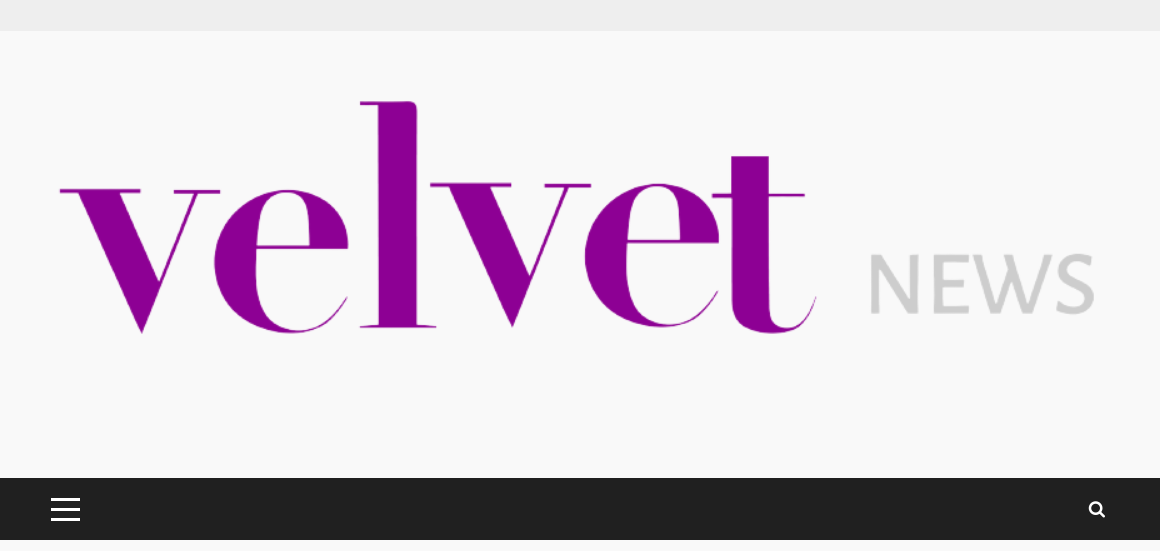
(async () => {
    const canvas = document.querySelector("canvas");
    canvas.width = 1160;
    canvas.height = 551;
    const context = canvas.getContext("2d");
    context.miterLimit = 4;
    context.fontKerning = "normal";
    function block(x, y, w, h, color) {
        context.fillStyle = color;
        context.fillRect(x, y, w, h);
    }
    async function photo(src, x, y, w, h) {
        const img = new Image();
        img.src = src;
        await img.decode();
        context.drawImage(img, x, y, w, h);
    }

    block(0, 0, 1160, 551, "rgb(238, 238, 238)");
    block(0, 31, 1160, 520, "rgb(249, 249, 249)");
    await photo("media/1.png", 58, 100, 1036, 234);
    block(0, 478, 1160, 62, "rgb(32, 32, 32)");
    block(51, 508, 29, 3, "rgb(255, 255, 255)");
    block(51, 498, 29, 3, "rgb(255, 255, 255)");
    block(51, 518, 29, 3, "rgb(255, 255, 255)");
    await photo("media/2.png", 1088, 501, 17, 17);
})();
